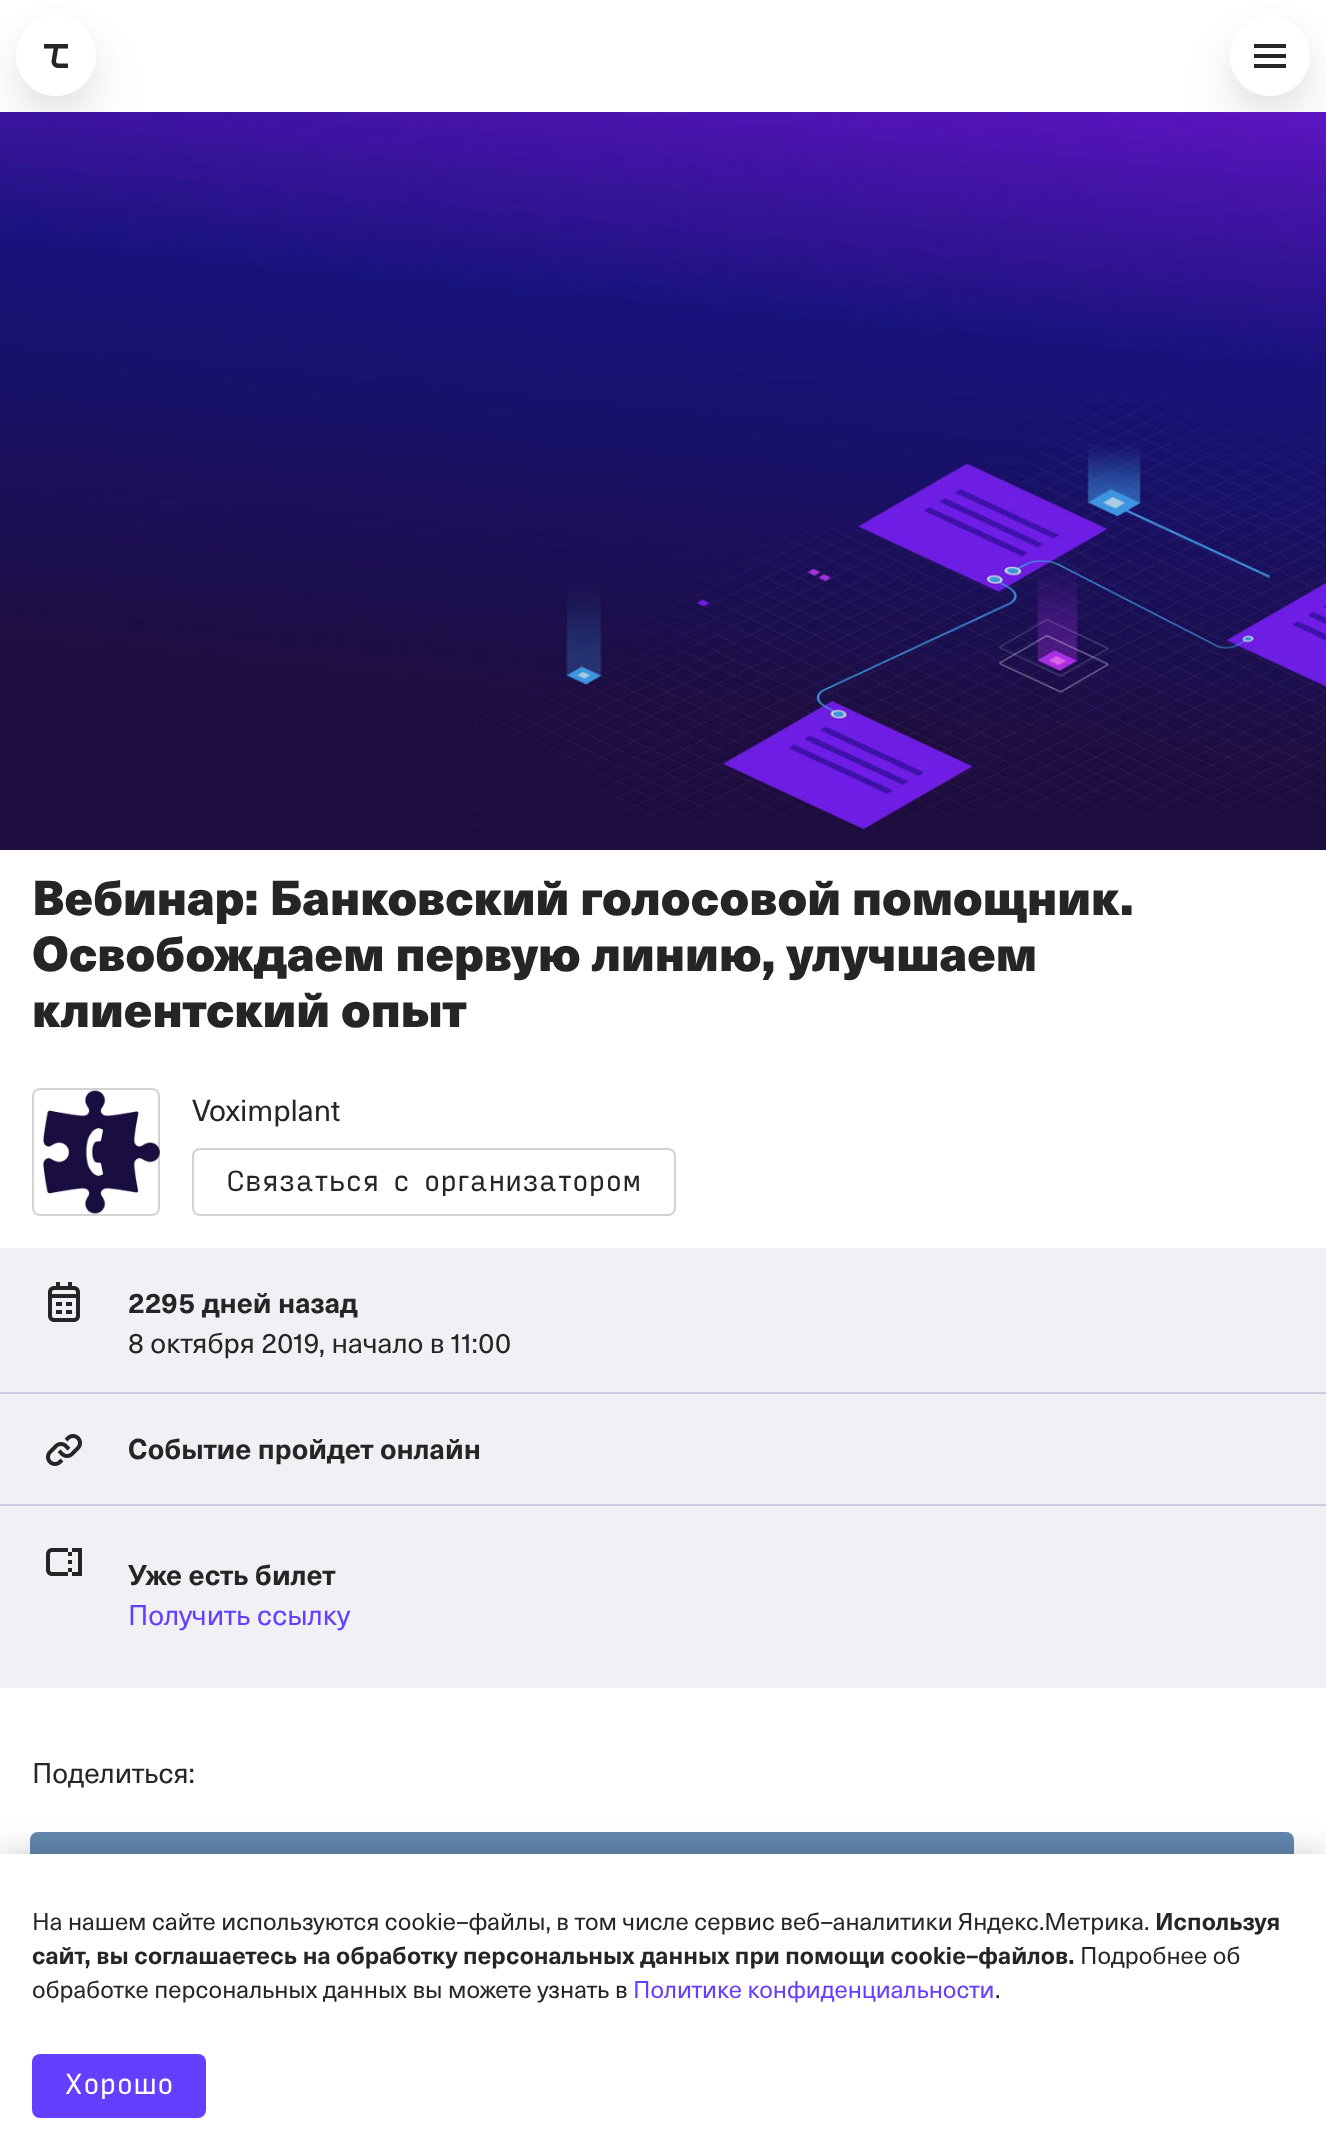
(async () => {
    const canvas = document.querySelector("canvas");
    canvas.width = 1326;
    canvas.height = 2150;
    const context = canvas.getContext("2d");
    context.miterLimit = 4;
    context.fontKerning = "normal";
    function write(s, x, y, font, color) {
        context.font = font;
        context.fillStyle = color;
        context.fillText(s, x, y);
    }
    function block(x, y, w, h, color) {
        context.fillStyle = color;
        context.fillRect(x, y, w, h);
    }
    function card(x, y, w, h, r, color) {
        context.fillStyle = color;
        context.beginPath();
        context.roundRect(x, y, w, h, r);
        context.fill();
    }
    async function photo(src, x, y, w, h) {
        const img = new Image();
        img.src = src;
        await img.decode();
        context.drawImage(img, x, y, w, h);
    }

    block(0, 0, 1326, 2150, "rgb(255, 255, 255)");
    context.save();
    context.beginPath();
    context.moveTo(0, 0);
    context.lineTo(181, 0);
    context.lineTo(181, 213);
    context.lineTo(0, 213);
    context.closePath();
    context.moveTo(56, 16);
    context.bezierCurveTo(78, 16, 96, 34, 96, 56);
    context.bezierCurveTo(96, 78, 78, 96, 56, 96);
    context.bezierCurveTo(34, 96, 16, 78, 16, 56);
    context.bezierCurveTo(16, 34, 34, 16, 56, 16);
    context.closePath();
    context.clip("evenodd");
    context.fillStyle = "rgba(0, 0, 0, 0.07)";
    context.filter = "blur(28px)";
    context.beginPath();
    context.roundRect(16, 48, 80, 80, 40);
    context.fill();
    context.filter = "none";
    context.restore();
    context.save();
    context.beginPath();
    context.moveTo(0, 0);
    context.lineTo(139, 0);
    context.lineTo(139, 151);
    context.lineTo(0, 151);
    context.closePath();
    context.moveTo(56, 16);
    context.bezierCurveTo(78, 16, 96, 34, 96, 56);
    context.bezierCurveTo(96, 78, 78, 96, 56, 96);
    context.bezierCurveTo(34, 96, 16, 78, 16, 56);
    context.bezierCurveTo(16, 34, 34, 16, 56, 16);
    context.closePath();
    context.clip("evenodd");
    context.fillStyle = "rgba(0, 0, 0, 0.06)";
    context.filter = "blur(14px)";
    context.beginPath();
    context.roundRect(16, 28, 80, 80, 40);
    context.fill();
    context.filter = "none";
    context.restore();
    await photo("media/1.png", 44, 44, 24, 24);
    context.save();
    context.beginPath();
    context.moveTo(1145, 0);
    context.lineTo(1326, 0);
    context.lineTo(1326, 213);
    context.lineTo(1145, 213);
    context.closePath();
    context.moveTo(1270, 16);
    context.bezierCurveTo(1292, 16, 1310, 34, 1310, 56);
    context.bezierCurveTo(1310, 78, 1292, 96, 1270, 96);
    context.bezierCurveTo(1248, 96, 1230, 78, 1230, 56);
    context.bezierCurveTo(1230, 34, 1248, 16, 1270, 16);
    context.closePath();
    context.clip("evenodd");
    context.fillStyle = "rgba(0, 0, 0, 0.07)";
    context.filter = "blur(28px)";
    context.beginPath();
    context.roundRect(1230, 48, 80, 80, 40);
    context.fill();
    context.filter = "none";
    context.restore();
    context.save();
    context.beginPath();
    context.moveTo(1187, 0);
    context.lineTo(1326, 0);
    context.lineTo(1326, 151);
    context.lineTo(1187, 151);
    context.closePath();
    context.moveTo(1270, 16);
    context.bezierCurveTo(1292, 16, 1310, 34, 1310, 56);
    context.bezierCurveTo(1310, 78, 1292, 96, 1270, 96);
    context.bezierCurveTo(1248, 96, 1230, 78, 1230, 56);
    context.bezierCurveTo(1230, 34, 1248, 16, 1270, 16);
    context.closePath();
    context.clip("evenodd");
    context.fillStyle = "rgba(0, 0, 0, 0.06)";
    context.filter = "blur(14px)";
    context.beginPath();
    context.roundRect(1230, 28, 80, 80, 40);
    context.fill();
    context.filter = "none";
    context.restore();
    await photo("media/2.png", 1254, 44, 32, 24);
    await photo("media/3.png", 0, 112, 1326, 738);
    write("Вебинар: Банковский голосовой помощник.", 32, 915, "900 48px 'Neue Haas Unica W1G'", "rgb(37, 37, 37)");
    write("Освобождаем первую линию, улучшаем", 32, 971, "900 48px 'Neue Haas Unica W1G'", "rgb(37, 37, 37)");
    write("клиентский опыт", 32, 1027, "900 48px 'Neue Haas Unica W1G'", "rgb(37, 37, 37)");
    await photo("media/4.png", 40, 1089, 120, 125);
    context.beginPath();
    context.roundRect(33, 1089, 126, 126, 7);
    context.strokeStyle = "rgba(37, 37, 37, 0.2)";
    context.lineWidth = 2;
    context.stroke();
    write("Voximplant", 192, 1121, "30px 'Neue Haas Unica W1G'", "rgb(37, 37, 37)");
    context.beginPath();
    context.roundRect(193, 1149, 482, 66, 7);
    context.strokeStyle = "rgb(211, 211, 211)";
    context.stroke();
    write("Связаться с организатором", 226, 1191, "28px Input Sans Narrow", "rgb(37, 37, 37)");
    block(0, 1248, 1326, 144, "rgb(241, 240, 245)");
    await photo("media/5.png", 48, 1282, 32, 40);
    write("2295 дней назад", 128, 1313, "bold 28px 'Neue Haas Unica W1G'", "rgb(37, 37, 37)");
    write("8 октября 2019, начало в 11:00", 128, 1353, "28px 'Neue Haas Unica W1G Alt'", "rgb(37, 37, 37)");
    block(0, 1394, 1326, 110, "rgb(241, 240, 245)");
    block(0, 1392, 1326, 2, "rgb(206, 205, 222)");
    await photo("media/6.png", 46, 1434, 36, 32);
    write("Событие пройдет онлайн", 128, 1459, "bold 28px 'Neue Haas Unica W1G'", "rgb(37, 37, 37)");
    block(0, 1506, 1326, 182, "rgb(241, 240, 245)");
    block(0, 1504, 1326, 2, "rgb(206, 205, 222)");
    await photo("media/7.png", 46, 1548, 36, 28);
    write("Уже есть билет", 128, 1585, "bold 28px 'Neue Haas Unica W1G'", "rgb(37, 37, 37)");
    write("Получить ссылку", 128, 1625, "28px 'Neue Haas Unica W1G'", "rgb(100, 63, 255)");
    write("Поделиться:", 32, 1783, "28px 'Neue Haas Unica W1G'", "rgb(37, 37, 37)");
    card(30, 1832, 1264, 64, 8, "rgb(98, 135, 174)");
    context.fillStyle = "rgba(0, 0, 0, 0.2)";
    context.filter = "blur(16px)";
    context.beginPath();
    context.rect(0, 1854, 1326, 296);
    context.fill();
    context.filter = "none";
    block(0, 1854, 1326, 296, "rgb(255, 255, 255)");
    write("На нашем сайте используются cookie–файлы, в том числе сервис веб–аналитики Яндекс.Метрика.", 32, 1930, "24px 'Neue Haas Unica W1G'", "rgb(37, 37, 37)");
    write("Используя", 1155, 1930, "bold 24px 'Neue Haas Unica W1G'", "rgb(37, 37, 37)");
    write("сайт, вы соглашаетесь на обработку персональных данных при помощи cookie–файлов.", 32, 1964, "bold 24px 'Neue Haas Unica W1G'", "rgb(37, 37, 37)");
    write("Подробнее об", 1080, 1964, "24px 'Neue Haas Unica W1G'", "rgb(37, 37, 37)");
    write("обработке персональных данных вы можете узнать в", 32, 1998, "24px 'Neue Haas Unica W1G'", "rgb(37, 37, 37)");
    write("Политике конфиденциальности", 633, 1998, "24px 'Neue Haas Unica W1G'", "rgb(100, 63, 255)");
    write(".", 995, 1998, "24px 'Neue Haas Unica W1G'", "rgb(37, 37, 37)");
    card(32, 2054, 174, 64, 8, "rgb(100, 63, 255)");
    write("Хорошо", 64, 2094, "28px Input Sans Narrow", "rgb(255, 255, 255)");
})();
